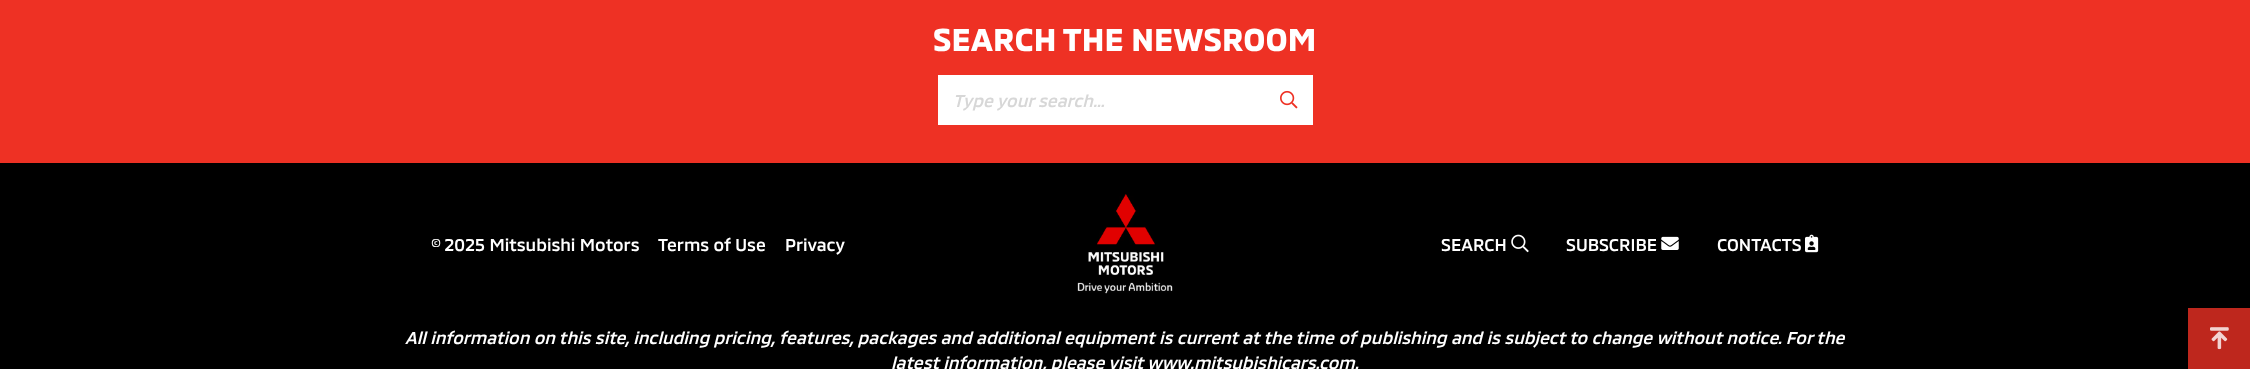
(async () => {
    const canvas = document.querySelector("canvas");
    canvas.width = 2250;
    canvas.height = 369;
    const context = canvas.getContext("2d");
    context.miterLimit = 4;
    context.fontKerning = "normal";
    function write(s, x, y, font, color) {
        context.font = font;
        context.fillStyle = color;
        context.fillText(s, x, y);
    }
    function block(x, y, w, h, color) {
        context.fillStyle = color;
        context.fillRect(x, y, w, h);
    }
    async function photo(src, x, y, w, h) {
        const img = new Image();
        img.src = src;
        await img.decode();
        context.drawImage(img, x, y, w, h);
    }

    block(0, 0, 2250, 369, "rgb(0, 0, 0)");
    block(0, 0, 2250, 163, "rgb(238, 49, 36)");
    write("SEARCH THE NEWSROOM", 933, 51, "bold 32.5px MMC", "rgb(255, 255, 255)");
    block(938, 75, 375, 50, "rgb(255, 255, 255)");
    await photo("media/1.png", 1280, 90, 18, 19);
    write("Type your search...", 953, 107, "italic 500 17.5px MMC", "rgb(215, 215, 215)");
    write("© 2025 Mitsubishi Motors", 431, 251, "500 17.5px MMC", "rgb(255, 255, 255)");
    write("Terms of Use", 658, 251, "500 17.5px MMC", "rgb(255, 255, 255)");
    write("Privacy", 785, 251, "500 17.5px MMC", "rgb(255, 255, 255)");
    await photo("media/2.png", 1077, 194, 96, 100);
    write("SEARCH", 1441, 251, "500 17.5px MMC", "rgb(255, 255, 255)");
    await photo("media/3.png", 1511, 234, 18, 19);
    write("SUBSCRIBE", 1566, 251, "500 17.5px MMC", "rgb(255, 255, 255)");
    await photo("media/4.png", 1661, 236, 18, 14);
    write("CONTACTS", 1717, 251, "500 17.5px MMC", "rgb(255, 255, 255)");
    await photo("media/5.png", 1805, 234, 14, 19);
    write("All information on this site, including pricing, features, packages and additional equipment is current at the time of publishing and is subject to change without notice. For the", 405, 344, "italic 500 17.5px MMC", "rgb(255, 255, 255)");
    write("latest information, please visit www.mitsubishicars.com.", 891, 369, "italic 500 17.5px MMC", "rgb(255, 255, 255)");
    block(2188, 308, 62, 61, "rgb(190, 39, 29)");
    await photo("media/6.png", 2210, 327, 19, 23);
})();
